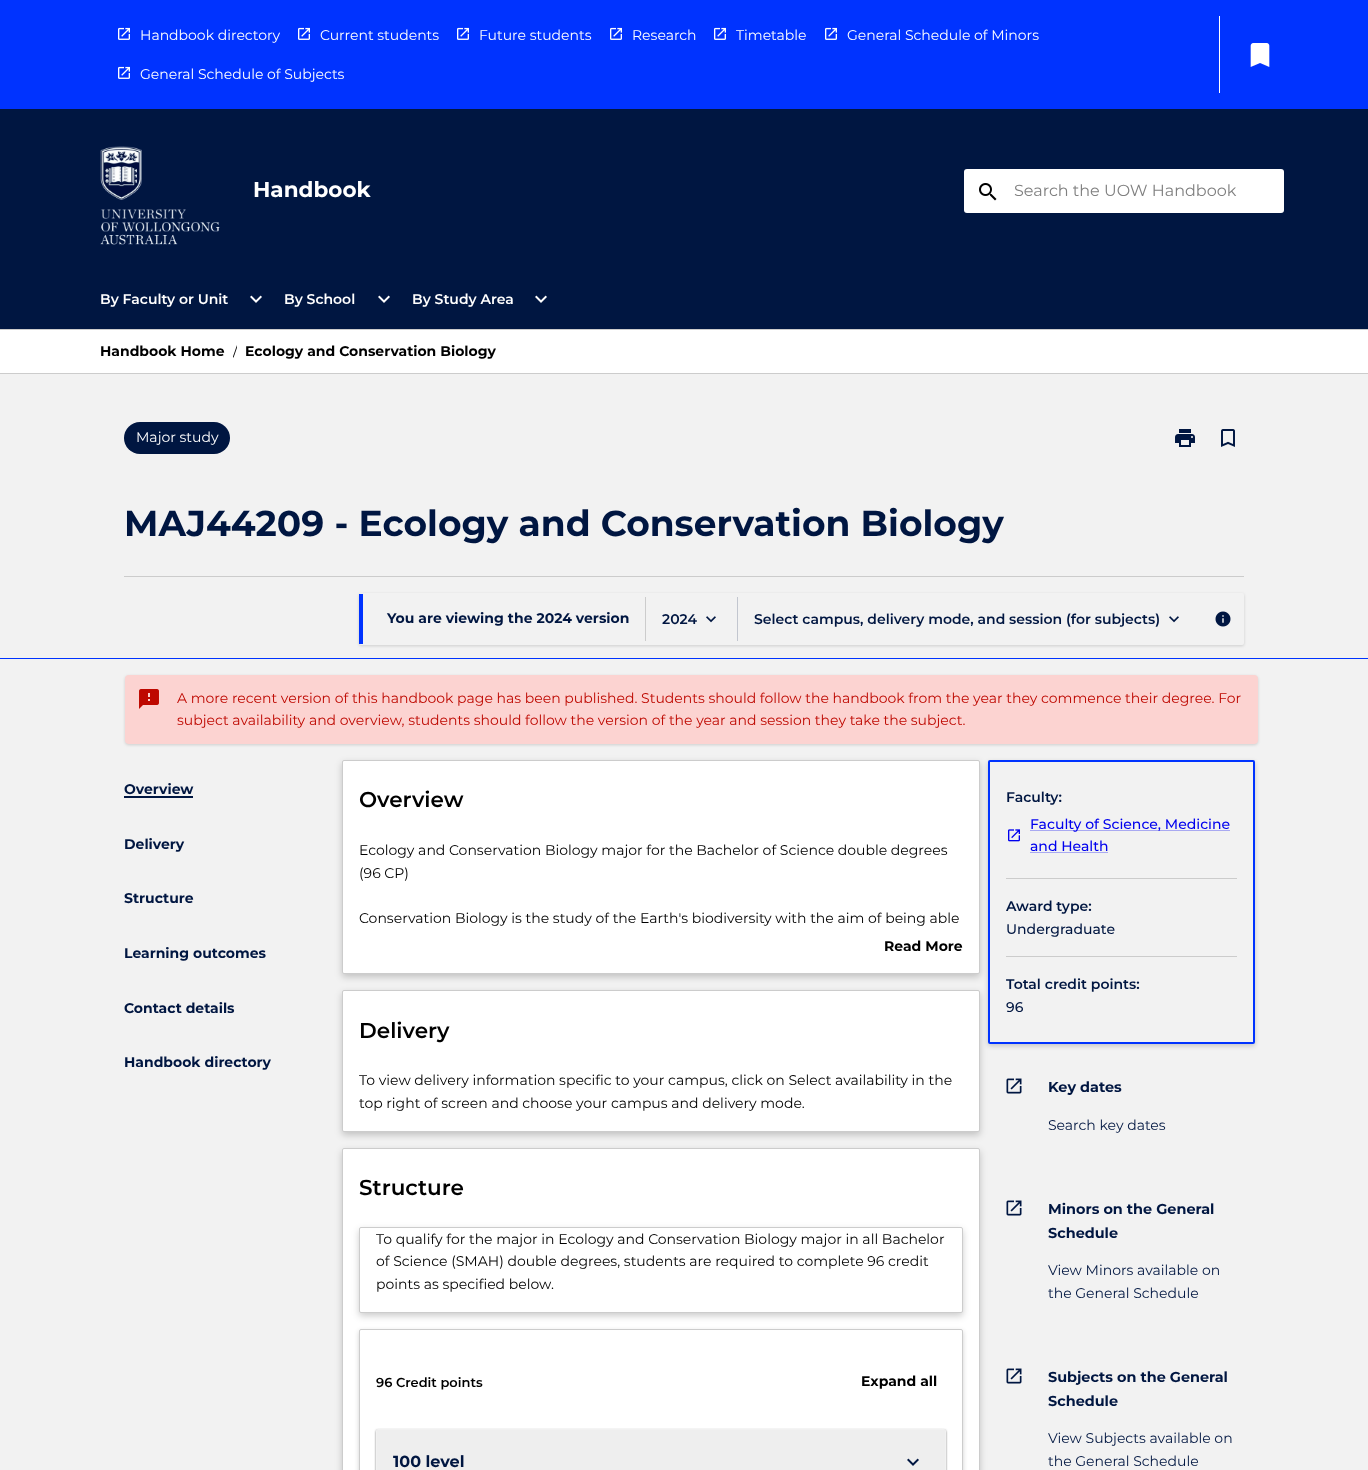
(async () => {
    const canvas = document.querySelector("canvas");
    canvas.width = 1368;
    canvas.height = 1470;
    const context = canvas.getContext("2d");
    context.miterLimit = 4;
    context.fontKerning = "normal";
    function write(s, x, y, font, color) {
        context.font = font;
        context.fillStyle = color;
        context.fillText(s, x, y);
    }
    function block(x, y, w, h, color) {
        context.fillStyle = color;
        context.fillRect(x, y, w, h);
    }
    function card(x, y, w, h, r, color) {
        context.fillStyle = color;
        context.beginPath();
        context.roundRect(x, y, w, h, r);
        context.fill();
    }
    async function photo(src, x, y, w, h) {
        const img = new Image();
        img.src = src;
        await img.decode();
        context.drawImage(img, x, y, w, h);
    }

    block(0, 0, 1368, 1470, "rgb(255, 255, 255)");
    block(0, 0, 1368, 109, "rgb(0, 51, 255)");
    block(1219, 16, 1, 77, "rgb(255, 255, 255)");
    await photo("media/1.png", 118, 27, 12, 13);
    write("Handbook directory", 140, 40, "14px Montserrat", "rgb(255, 255, 255)");
    await photo("media/1.png", 298, 27, 12, 13);
    write("Current students", 320, 40, "14px Montserrat", "rgb(255, 255, 255)");
    await photo("media/1.png", 457, 27, 12, 13);
    write("Future students", 479, 40, "14px Montserrat", "rgb(255, 255, 255)");
    await photo("media/1.png", 610, 27, 12, 13);
    write("Research", 632, 40, "14px Montserrat", "rgb(255, 255, 255)");
    await photo("media/1.png", 714, 27, 12, 13);
    write("Timetable", 736, 40, "14px Montserrat", "rgb(255, 255, 255)");
    await photo("media/1.png", 825, 27, 12, 13);
    write("General Schedule of Minors", 847, 40, "14px Montserrat", "rgb(255, 255, 255)");
    await photo("media/1.png", 118, 66, 12, 13);
    write("General Schedule of Subjects", 140, 79, "14px Montserrat", "rgb(255, 255, 255)");
    await photo("media/2.png", 1250, 43, 20, 24);
    block(0, 109, 1368, 220, "rgb(0, 22, 65)");
    await photo("media/3.png", 100, 146, 120, 99);
    write("Handbook", 253, 197, "bold 21.5px Montserrat", "rgb(255, 255, 255)");
    card(964, 169, 320, 44, 3, "rgb(255, 255, 255)");
    await photo("media/4.png", 979, 183, 18, 18);
    write("Search the UOW Handbook", 1014, 196, "16px Montserrat", "rgb(128, 128, 128)");
    write("By Faculty or Unit", 100, 304, "600 14px Montserrat", "rgb(255, 255, 255)");
    await photo("media/5.png", 250, 295, 12, 8);
    write("By School", 284, 304, "600 14px Montserrat", "rgb(255, 255, 255)");
    await photo("media/5.png", 378, 295, 12, 8);
    write("By Study Area", 412, 304, "600 14px Montserrat", "rgb(255, 255, 255)");
    await photo("media/5.png", 535, 295, 12, 8);
    block(0, 329, 1368, 1, "rgb(204, 204, 204)");
    block(0, 373, 1368, 1, "rgb(204, 204, 204)");
    write("Handbook Home", 100, 356, "bold 14px Montserrat", "rgb(0, 0, 0)");
    context.save();
    context.beginPath();
    context.rect(233, 340, 4, 22);
    context.clip();
    write("/", 233, 356, "14px Montserrat", "rgb(0, 0, 0)");
    context.restore();
    write("Ecology and Conservation Biology", 245, 356, "bold 14px Montserrat", "rgb(0, 0, 0)");
    block(0, 374, 1368, 1096, "rgb(242, 242, 242)");
    card(124, 422, 106, 32, 16, "rgb(0, 22, 65)");
    write("Major study", 136, 442, "14px Montserrat", "rgb(255, 255, 255)");
    await photo("media/6.png", 1175, 429, 20, 18);
    await photo("media/7.png", 1221, 429, 14, 18);
    block(124, 576, 1120, 1, "rgb(204, 204, 204)");
    write("MAJ44209 - Ecology and Conservation Biology", 124, 536, "bold 36px Montserrat", "rgb(0, 22, 65)");
    context.fillStyle = "rgba(0, 0, 0, 0.15)";
    context.filter = "blur(1.5px)";
    context.beginPath();
    context.roundRect(359, 594, 885, 52, 2);
    context.fill();
    context.filter = "none";
    card(359, 593, 885, 52, 2, "rgb(242, 242, 242)");
    block(359, 594, 4, 50, "rgb(0, 51, 255)");
    block(645, 597, 1, 44, "rgb(204, 204, 204)");
    write("You are viewing the 2024 version", 387, 623, "bold 14px Montserrat", "rgb(0, 22, 65)");
    write("2024", 662, 624, "600 14px Montserrat", "rgb(0, 22, 65)");
    await photo("media/8.png", 706, 616, 10, 7);
    block(737, 597, 1, 44, "rgb(194, 198, 207)");
    write("Select campus, delivery mode, and session (for subjects)", 754, 624, "600 14px Montserrat", "rgb(0, 22, 65)");
    await photo("media/8.png", 1169, 616, 10, 7);
    await photo("media/9.png", 1215, 611, 16, 16);
    block(0, 658, 1368, 1, "rgb(0, 51, 255)");
    context.fillStyle = "rgba(0, 0, 0, 0.15)";
    context.filter = "blur(1.5px)";
    context.beginPath();
    context.roundRect(125, 676, 1133, 69, 4);
    context.fill();
    context.filter = "none";
    card(125, 675, 1133, 69, 4, "rgb(252, 211, 209)");
    await photo("media/10.png", 139, 689, 20, 20);
    write("A more recent version of this handbook page has been published. Students should follow the handbook from the year they commence their degree. For", 177, 703, "14px Montserrat", "rgb(190, 8, 0)");
    write("subject availability and overview, students should follow the version of the year and session they take the subject.", 177, 725, "14px Montserrat", "rgb(190, 8, 0)");
    write("Overview", 124, 794, "bold 14px Montserrat", "rgb(0, 22, 65)");
    block(124, 796, 69, 2, "rgb(0, 22, 65)");
    write("Delivery", 124, 849, "bold 14px Montserrat", "rgb(0, 22, 65)");
    write("Structure", 124, 903, "bold 14px Montserrat", "rgb(0, 22, 65)");
    write("Learning outcomes", 124, 958, "bold 14px Montserrat", "rgb(0, 22, 65)");
    write("Contact details", 124, 1013, "bold 14px Montserrat", "rgb(0, 22, 65)");
    write("Handbook directory", 124, 1067, "bold 14px Montserrat", "rgb(0, 22, 65)");
    context.fillStyle = "rgba(0, 0, 0, 0.2)";
    context.filter = "blur(3.5px)";
    context.beginPath();
    context.roundRect(342, 763, 638, 214, 2);
    context.fill();
    context.filter = "none";
    context.fillStyle = "rgb(255, 255, 255)";
    context.beginPath();
    context.roundRect(342.5, 760.5, 637, 213, 1.5);
    context.fill();
    context.strokeStyle = "rgb(204, 204, 204)";
    context.stroke();
    write("Overview", 359, 807, "600 21.5px Montserrat", "rgb(0, 0, 0)");
    write("Ecology and Conservation Biology major for the Bachelor of Science double degrees", 359, 855, "14px Montserrat", "rgb(0, 0, 0)");
    write("(96 CP)", 359, 878, "14px Montserrat", "rgb(0, 0, 0)");
    write("Conservation Biology is the study of the Earth's biodiversity with the aim of being able", 359, 923, "14px Montserrat", "rgb(0, 0, 0)");
    write("Read More", 884, 951, "bold 14px Montserrat", "rgb(0, 0, 0)");
    context.fillStyle = "rgba(0, 0, 0, 0.2)";
    context.filter = "blur(3.5px)";
    context.beginPath();
    context.roundRect(342, 993, 638, 142, 2);
    context.fill();
    context.filter = "none";
    context.fillStyle = "rgb(255, 255, 255)";
    context.beginPath();
    context.roundRect(342.5, 990.5, 637, 141, 1.5);
    context.fill();
    context.stroke();
    write("Delivery", 359, 1038, "600 21.5px Montserrat", "rgb(0, 0, 0)");
    write("To view delivery information specific to your campus, click on Select availability in the", 359, 1085, "14px Montserrat", "rgb(0, 0, 0)");
    write("top right of screen and choose your campus and delivery mode.", 359, 1108, "14px Montserrat", "rgb(0, 0, 0)");
    context.fillStyle = "rgba(0, 0, 0, 0.2)";
    context.filter = "blur(3.5px)";
    context.beginPath();
    context.roundRect(342, 1151, 638, 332, 2);
    context.fill();
    context.filter = "none";
    context.fillStyle = "rgb(255, 255, 255)";
    context.beginPath();
    context.roundRect(342.5, 1148.5, 637, 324, 1.5);
    context.fill();
    context.stroke();
    write("Structure", 359, 1195, "600 21.5px Montserrat", "rgb(0, 0, 0)");
    context.fillStyle = "rgba(0, 0, 0, 0.2)";
    context.filter = "blur(3.5px)";
    context.beginPath();
    context.roundRect(359, 1230, 604, 86, 2);
    context.fill();
    context.filter = "none";
    context.fillStyle = "rgb(255, 255, 255)";
    context.beginPath();
    context.roundRect(359.5, 1227.5, 603, 85, 1.5);
    context.fill();
    context.stroke();
    write("To qualify for the major in Ecology and Conservation Biology major in all Bachelor", 376, 1244, "14px Montserrat", "rgb(0, 0, 0)");
    write("of Science (SMAH) double degrees, students are required to complete 96 credit", 376, 1266, "14px Montserrat", "rgb(0, 0, 0)");
    write("points as specified below.", 376, 1289, "14px Montserrat", "rgb(0, 0, 0)");
    context.save();
    context.beginPath();
    context.moveTo(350, 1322);
    context.lineTo(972, 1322);
    context.lineTo(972, 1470);
    context.lineTo(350, 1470);
    context.closePath();
    context.moveTo(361, 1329);
    context.lineTo(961, 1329);
    context.bezierCurveTo(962, 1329, 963, 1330, 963, 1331);
    context.lineTo(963, 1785);
    context.bezierCurveTo(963, 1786, 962, 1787, 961, 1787);
    context.lineTo(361, 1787);
    context.bezierCurveTo(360, 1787, 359, 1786, 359, 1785);
    context.lineTo(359, 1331);
    context.bezierCurveTo(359, 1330, 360, 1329, 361, 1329);
    context.closePath();
    context.clip("evenodd");
    context.fillStyle = "rgba(0, 0, 0, 0.18)";
    context.filter = "blur(2.5px)";
    context.beginPath();
    context.roundRect(359, 1331, 604, 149, 2);
    context.fill();
    context.filter = "none";
    context.restore();
    context.beginPath();
    context.roundRect(359.5, 1329.5, 603, 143, 1.5);
    context.stroke();
    write("96 Credit points", 376, 1387, "600 13px Montserrat", "rgb(0, 0, 0)");
    write("Expand all", 861, 1386, "bold 14px Montserrat", "rgb(0, 0, 0)");
    context.fillStyle = "rgba(0, 0, 0, 0.5)";
    context.filter = "blur(1px)";
    context.beginPath();
    context.roundRect(376, 1430, 570, 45, 2);
    context.fill();
    context.filter = "none";
    context.beginPath();
    context.roundRect(376.5, 1429.5, 569, 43, 1.5);
    context.strokeStyle = "rgb(241, 241, 241)";
    context.stroke();
    block(377, 1430, 568, 40, "rgb(238, 238, 238)");
    write("100 level", 393, 1467, "bold 16px Montserrat", "rgb(0, 22, 65)");
    await photo("media/11.png", 907, 1458, 12, 8);
    context.fillStyle = "rgba(0, 0, 0, 0.18)";
    context.filter = "blur(2.5px)";
    context.beginPath();
    context.roundRect(988, 762, 267, 284, 2);
    context.fill();
    context.filter = "none";
    context.fillStyle = "rgb(242, 242, 242)";
    context.beginPath();
    context.roundRect(989, 761, 265, 282, 1);
    context.fill();
    context.strokeStyle = "rgb(0, 51, 255)";
    context.lineWidth = 2;
    context.stroke();
    block(1006, 878, 231, 1, "rgb(204, 204, 204)");
    write("Faculty:", 1006, 802, "600 14px Montserrat", "rgb(0, 22, 65)");
    block(1030, 830, 200, 1, "rgb(169, 169, 241)");
    write("Faculty of Science, Medicine", 1030, 829, "500 14px Montserrat", "rgb(0, 0, 238)");
    await photo("media/12.png", 1008, 829, 12, 13);
    write("and Health", 1030, 851, "500 14px Montserrat", "rgb(0, 0, 238)");
    block(1030, 852, 78, 1, "rgb(169, 169, 241)");
    block(1006, 956, 231, 1, "rgb(204, 204, 204)");
    write("Award type:", 1006, 911, "600 14px Montserrat", "rgb(0, 22, 65)");
    write("Undergraduate", 1006, 934, "500 14px Montserrat", "rgb(0, 22, 65)");
    write("Total credit points:", 1006, 989, "600 14px Montserrat", "rgb(0, 22, 65)");
    write("96", 1006, 1012, "500 14px Montserrat", "rgb(0, 22, 65)");
    await photo("media/13.png", 1006, 1078, 16, 16);
    write("Key dates", 1048, 1092, "bold 14.4px Montserrat", "rgb(0, 22, 65)");
    write("Search key dates", 1048, 1130, "14px Montserrat", "rgb(0, 22, 65)");
    await photo("media/13.png", 1006, 1200, 16, 16);
    write("Minors on the General", 1048, 1214, "bold 14.4px Montserrat", "rgb(0, 22, 65)");
    write("Schedule", 1048, 1238, "bold 14.4px Montserrat", "rgb(0, 22, 65)");
    write("View Minors available on", 1048, 1275, "14px Montserrat", "rgb(0, 22, 65)");
    write("the General Schedule", 1048, 1298, "14px Montserrat", "rgb(0, 22, 65)");
    await photo("media/13.png", 1006, 1368, 16, 16);
    write("Subjects on the General", 1048, 1382, "bold 14.4px Montserrat", "rgb(0, 22, 65)");
    write("Schedule", 1048, 1406, "bold 14.4px Montserrat", "rgb(0, 22, 65)");
    write("View Subjects available on", 1048, 1443, "14px Montserrat", "rgb(0, 22, 65)");
    write("the General Schedule", 1048, 1466, "14px Montserrat", "rgb(0, 22, 65)");
})();
